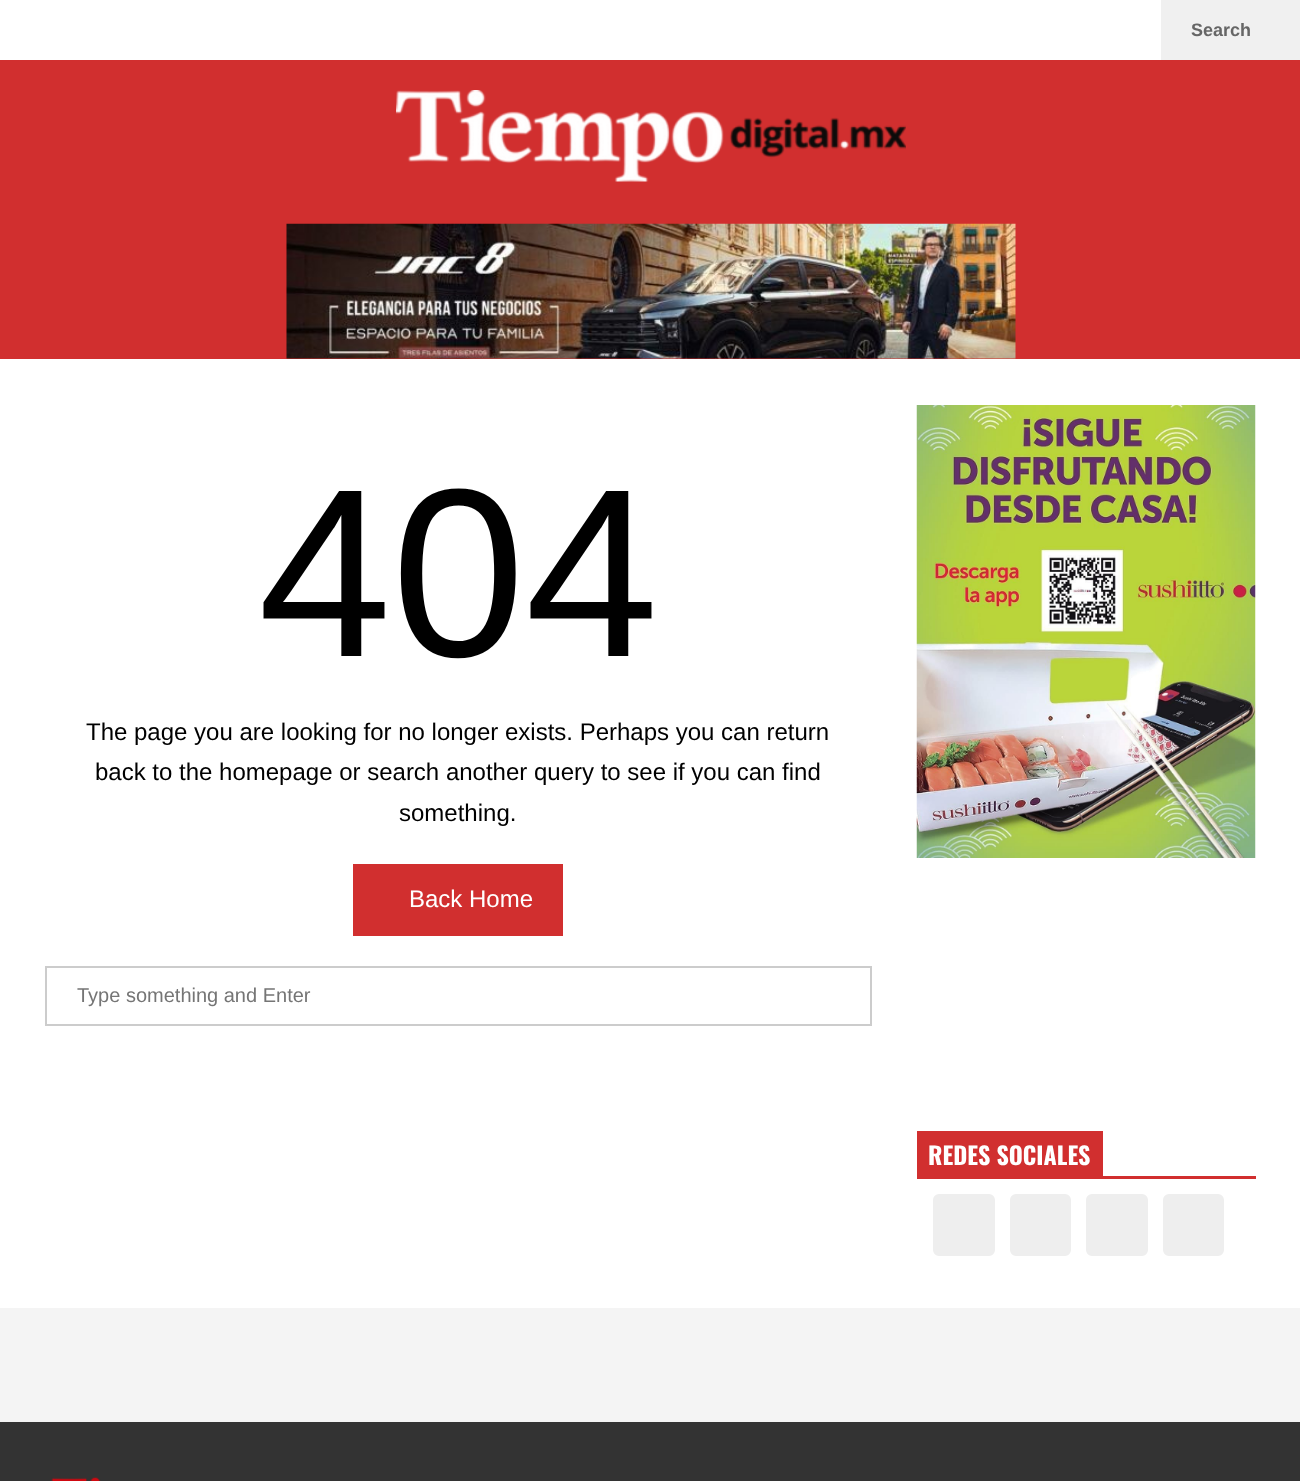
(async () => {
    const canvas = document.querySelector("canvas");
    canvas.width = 1300;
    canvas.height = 1481;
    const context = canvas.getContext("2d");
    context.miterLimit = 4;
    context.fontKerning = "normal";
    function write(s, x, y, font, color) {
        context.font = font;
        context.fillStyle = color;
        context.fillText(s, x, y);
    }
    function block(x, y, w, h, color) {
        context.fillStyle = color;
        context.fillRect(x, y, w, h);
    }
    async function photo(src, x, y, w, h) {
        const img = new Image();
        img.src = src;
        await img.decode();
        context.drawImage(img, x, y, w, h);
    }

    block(0, 0, 1300, 1481, "rgb(255, 255, 255)");
    block(1161, 0, 139, 60, "rgb(240, 240, 240)");
    write("Search", 1191, 36, "bold 18px Liberation Sans", "rgb(102, 102, 102)");
    block(0, 60, 1300, 299, "rgb(209, 47, 47)");
    await photo("media/1.png", 396, 90, 510, 92);
    await photo("media/2.png", 286, 223, 730, 136);
    write("404", 258, 656, "240px Liberation Sans", "rgb(0, 0, 0)");
    write("The page you are looking for no longer exists. Perhaps you can return", 86, 740, "24px Liberation Sans", "rgb(0, 0, 0)");
    write("back to the homepage or search another query to see if you can find", 95, 780, "24px Liberation Sans", "rgb(0, 0, 0)");
    write("something.", 399, 821, "24px Liberation Sans", "rgb(0, 0, 0)");
    block(353, 864, 210, 72, "rgb(209, 47, 47)");
    write("Back Home", 409, 907, "24px Liberation Sans", "rgb(255, 255, 255)");
    context.strokeStyle = "rgb(204, 204, 204)";
    context.lineWidth = 2;
    context.strokeRect(46, 967, 825, 58);
    write("Type something and Enter", 77, 1002, "20px Liberation Sans", "rgb(117, 117, 117)");
    await photo("media/3.png", 916, 405, 340, 453);
    block(1103, 1176, 153, 3, "rgb(209, 47, 47)");
    block(917, 1131, 186, 48, "rgb(209, 47, 47)");
    write("REDES SOCIALES", 928, 1165, "bold 24px Oswald", "rgb(255, 255, 255)");
    context.fillStyle = "rgb(238, 238, 238)";
    context.beginPath();
    context.roundRect(935.5, 1196.5, 57, 57, 3.5);
    context.fill();
    context.strokeStyle = "rgb(238, 238, 238)";
    context.lineWidth = 5;
    context.stroke();
    context.beginPath();
    context.roundRect(1012.5, 1196.5, 56, 57, 3.5);
    context.fill();
    context.stroke();
    context.beginPath();
    context.roundRect(1088.5, 1196.5, 57, 57, 3.5);
    context.fill();
    context.stroke();
    context.beginPath();
    context.roundRect(1165.5, 1196.5, 56, 57, 3.5);
    context.fill();
    context.stroke();
    block(0, 1308, 1300, 114, "rgb(244, 244, 244)");
    block(0, 1422, 1300, 59, "rgb(51, 51, 51)");
    await photo("media/4.png", 51, 1477, 50, 4);
})();
